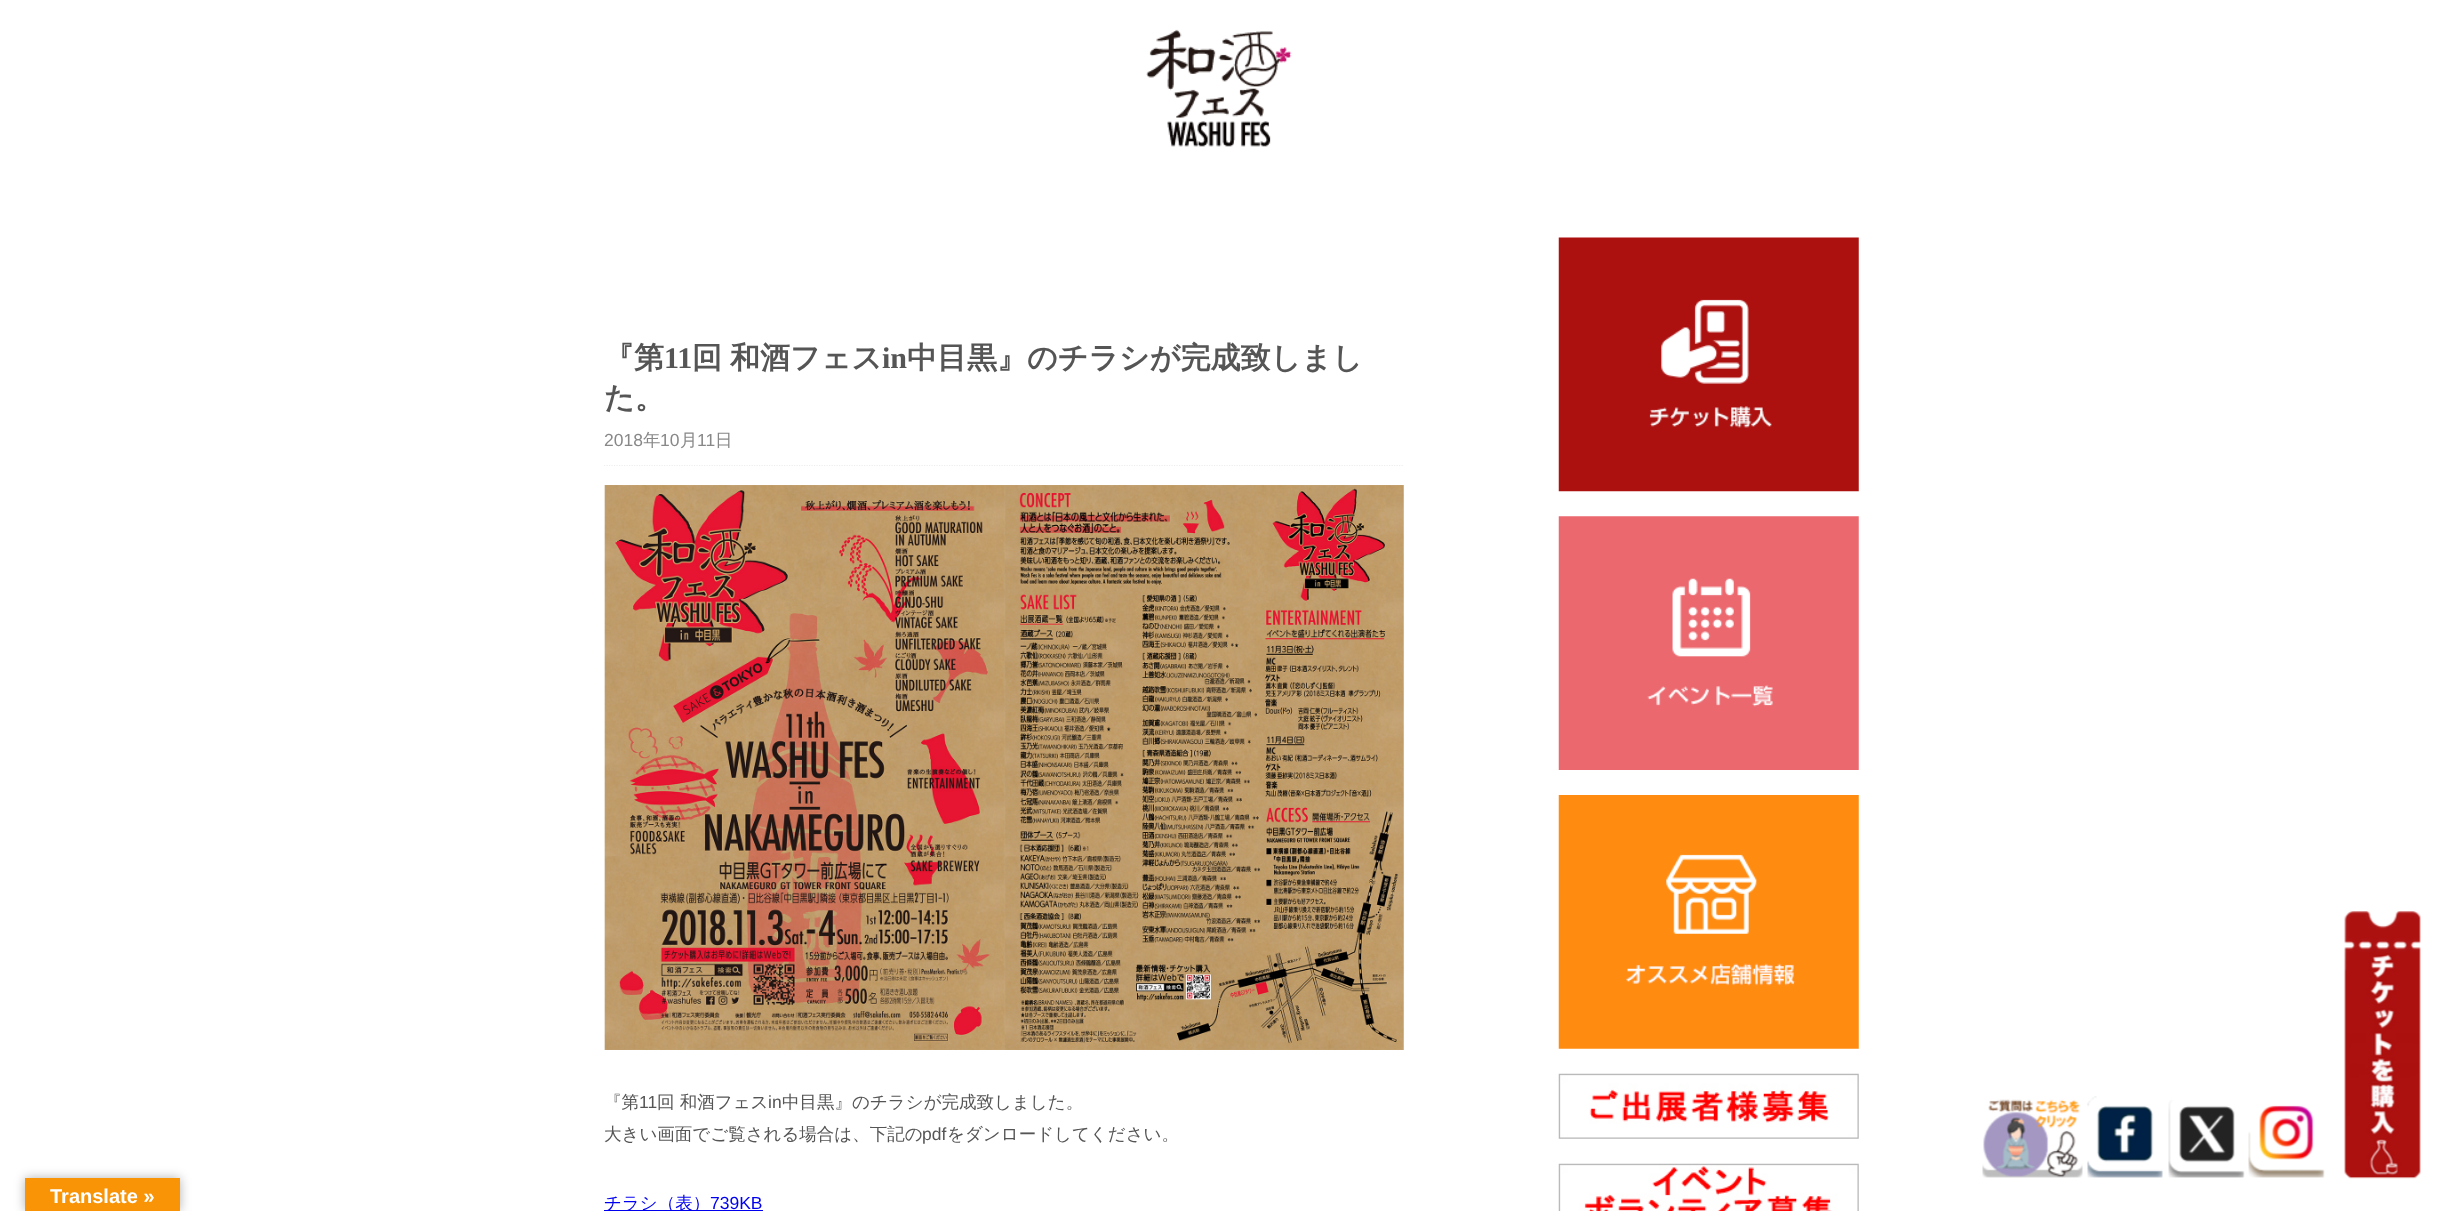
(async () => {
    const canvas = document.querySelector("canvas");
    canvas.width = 2437;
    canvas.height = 1211;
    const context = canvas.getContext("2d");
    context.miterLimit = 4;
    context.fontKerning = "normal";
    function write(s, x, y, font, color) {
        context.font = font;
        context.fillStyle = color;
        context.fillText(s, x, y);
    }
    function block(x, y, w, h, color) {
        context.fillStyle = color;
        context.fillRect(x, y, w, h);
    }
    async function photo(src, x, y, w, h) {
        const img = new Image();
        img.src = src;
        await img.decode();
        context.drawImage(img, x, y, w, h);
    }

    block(0, 0, 2437, 1211, "rgb(255, 255, 255)");
    await photo("media/1.png", 1146, 29, 146, 118);
    write("『第", 604, 368, "bold 30px WenQuanYi Zen Hei", "rgb(85, 85, 85)");
    write("11", 664, 368, "bold 30px Liberation Serif", "rgb(85, 85, 85)");
    context.wordSpacing = "-1px";
    write("回 和酒フェス", 692, 368, "bold 30px WenQuanYi Zen Hei", "rgb(85, 85, 85)");
    context.wordSpacing = "0px";
    write("in", 882, 368, "bold 30px Liberation Serif", "rgb(85, 85, 85)");
    write("中目黒』のチラシが完成致しまし", 907, 368, "bold 30px WenQuanYi Zen Hei", "rgb(85, 85, 85)");
    write("た。", 604, 408, "bold 30px WenQuanYi Zen Hei", "rgb(85, 85, 85)");
    context.beginPath();
    context.moveTo(604, 465.5);
    context.lineTo(1404, 465.5);
    context.strokeStyle = "rgb(238, 238, 238)";
    context.lineWidth = 1.2;
    context.setLineDash([1.25, 1.25]);
    context.stroke();
    write("2018", 604, 446, "17.5px Liberation Sans", "rgb(136, 136, 136)");
    write("年", 643, 446, "500 17.5px WenQuanYi Zen Hei", "rgb(136, 136, 136)");
    write("10", 660, 446, "17.5px Liberation Sans", "rgb(136, 136, 136)");
    write("月", 680, 446, "500 17.5px WenQuanYi Zen Hei", "rgb(136, 136, 136)");
    write("11", 697, 446, "17.5px Liberation Sans", "rgb(136, 136, 136)");
    write("日", 715, 446, "500 17.5px WenQuanYi Zen Hei", "rgb(136, 136, 136)");
    await photo("media/2.png", 604, 485, 800, 565);
    write("『第", 604, 1108, "500 17.5px WenQuanYi Zen Hei", "rgb(85, 85, 85)");
    write("11", 639, 1108, "17.5px Liberation Sans", "rgb(85, 85, 85)");
    write("回 和酒フェス", 657, 1108, "500 17.5px WenQuanYi Zen Hei", "rgb(85, 85, 85)");
    write("in", 768, 1108, "17.5px Liberation Sans", "rgb(85, 85, 85)");
    write("中目黒』のチラシが完成致しました。", 782, 1108, "500 17.5px WenQuanYi Zen Hei", "rgb(85, 85, 85)");
    write("大きい画面でご覧される場合は、下記の", 604, 1140, "500 17.5px WenQuanYi Zen Hei", "rgb(85, 85, 85)");
    write("pdf", 922, 1140, "17.5px Liberation Sans", "rgb(85, 85, 85)");
    write("をダンロードしてください。", 947, 1140, "500 17.5px WenQuanYi Zen Hei", "rgb(85, 85, 85)");
    block(604, 1210, 159, 1, "rgb(0, 0, 238)");
    write("チラシ（表）", 604, 1209, "500 17.5px WenQuanYi Zen Hei", "rgb(0, 0, 238)");
    write("739KB", 710, 1209, "17.5px Liberation Sans", "rgb(0, 0, 238)");
    await photo("media/3.png", 1558, 237, 301, 255);
    await photo("media/4.png", 1558, 516, 301, 254);
    await photo("media/5.png", 1558, 795, 301, 254);
    await photo("media/6.png", 1558, 1073, 301, 66);
    await photo("media/7.png", 1558, 1163, 301, 48);
    await photo("media/8.png", 1982, 1099, 101, 79);
    await photo("media/9.png", 2087, 1096, 76, 82);
    await photo("media/10.png", 2168, 1100, 77, 78);
    await photo("media/11.png", 2248, 1105, 77, 73);
    await photo("media/12.png", 2344, 911, 77, 268);
    context.fillStyle = "rgba(0, 0, 0, 0.3)";
    context.filter = "blur(5.5px)";
    context.beginPath();
    context.rect(25, 1178, 155, 33);
    context.fill();
    context.filter = "none";
    block(25, 1178, 155, 33, "rgb(248, 148, 6)");
    write("Translate »", 50, 1203, "bold 20px Liberation Sans", "rgb(255, 255, 255)");
})();
